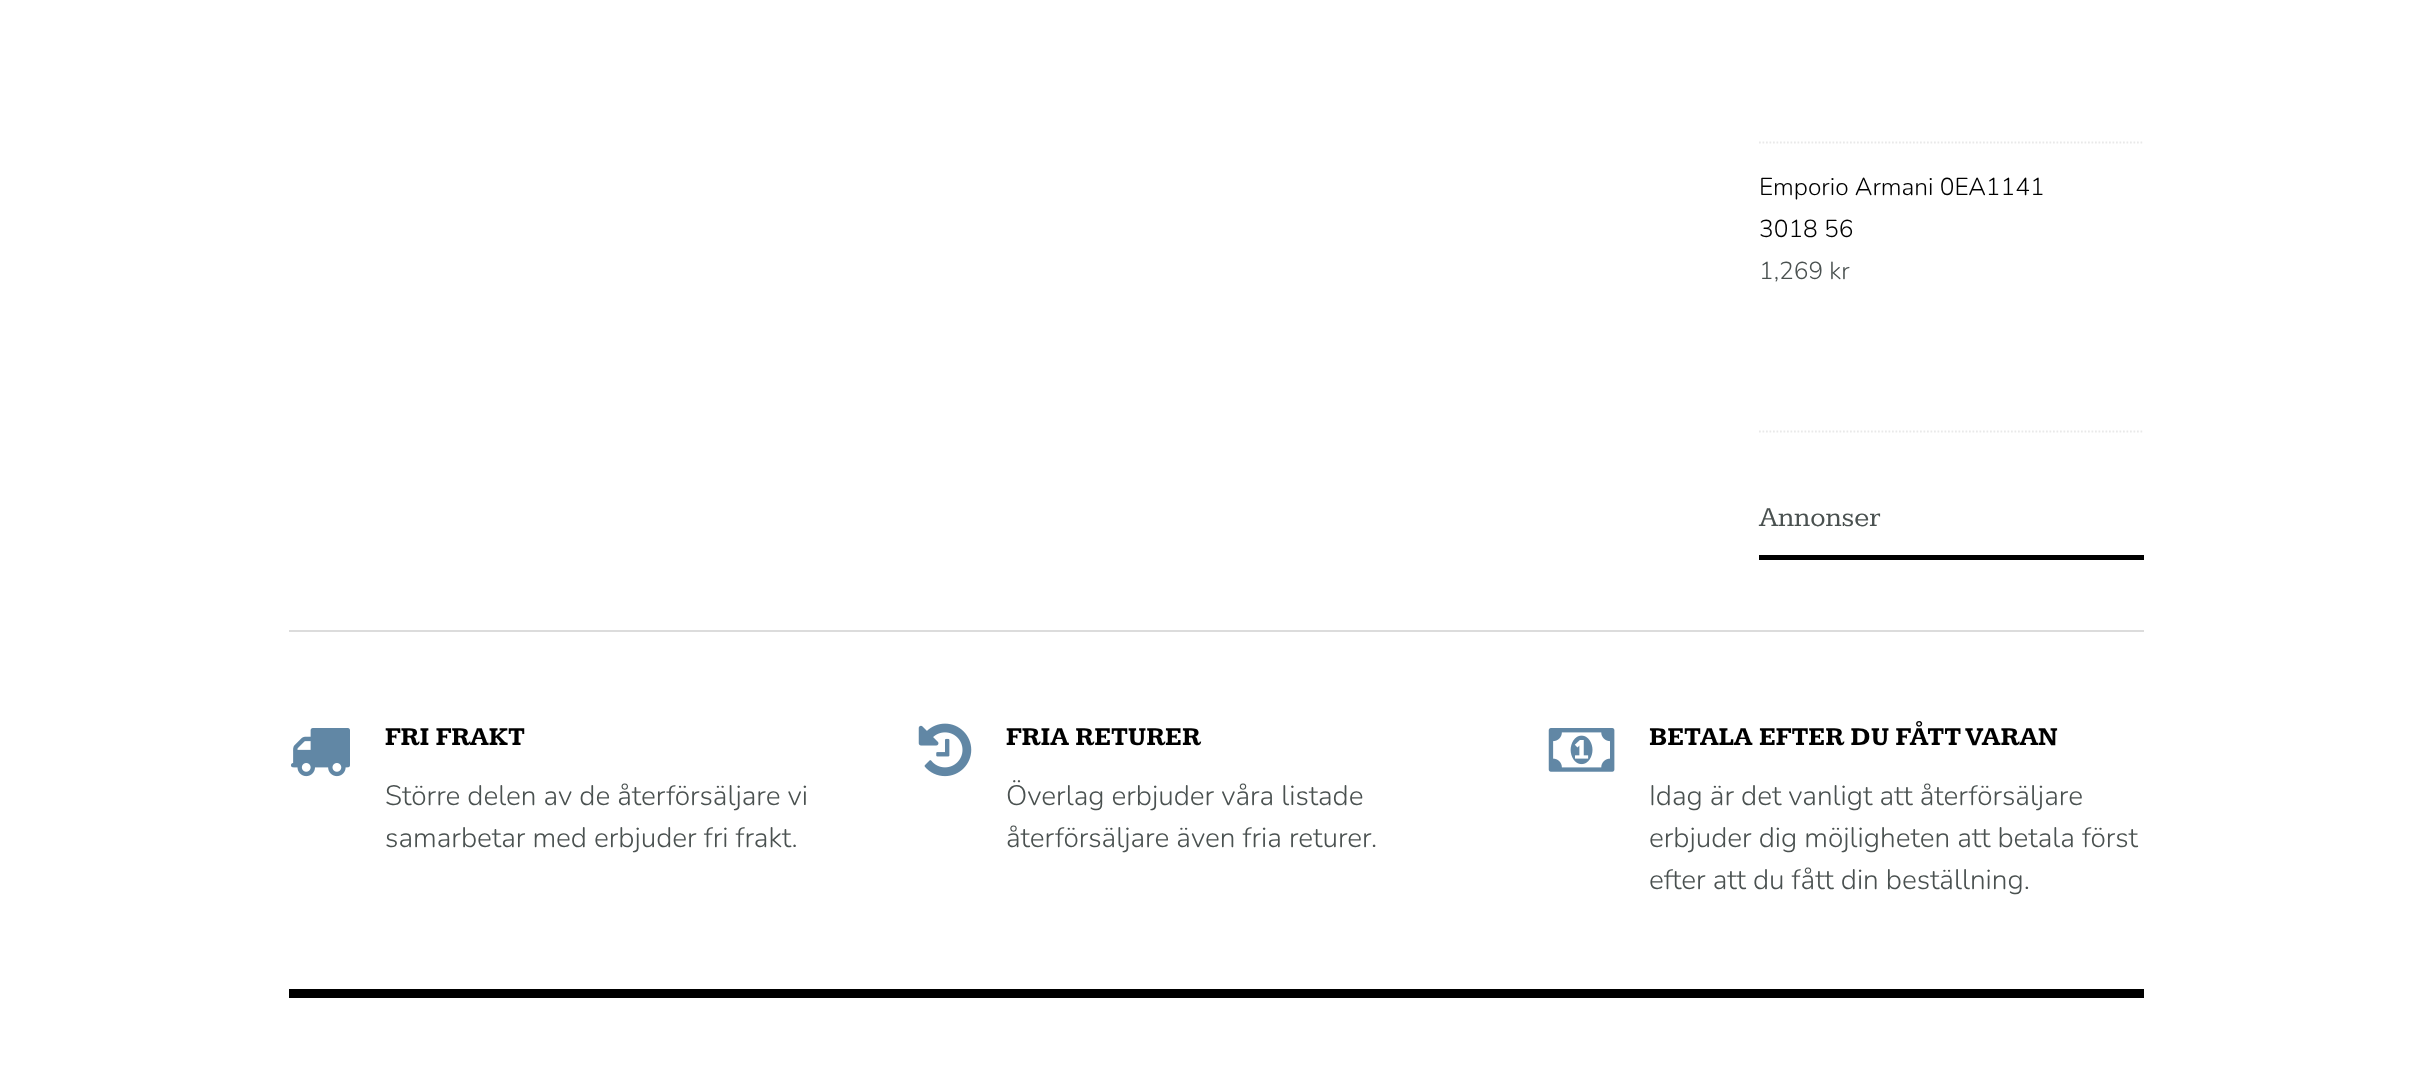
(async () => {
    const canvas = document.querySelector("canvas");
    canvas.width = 2432;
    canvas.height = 1079;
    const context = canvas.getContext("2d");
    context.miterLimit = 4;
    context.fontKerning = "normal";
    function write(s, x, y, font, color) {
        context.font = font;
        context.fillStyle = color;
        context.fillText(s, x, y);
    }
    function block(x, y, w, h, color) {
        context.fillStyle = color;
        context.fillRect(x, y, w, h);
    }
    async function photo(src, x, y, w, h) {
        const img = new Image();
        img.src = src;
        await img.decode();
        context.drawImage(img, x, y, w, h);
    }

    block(0, 0, 2432, 1079, "rgb(255, 255, 255)");
    context.beginPath();
    context.moveTo(1759, 142.5);
    context.lineTo(2144, 142.5);
    context.strokeStyle = "rgb(233, 233, 233)";
    context.lineWidth = 1.8;
    context.setLineDash([1.75, 1.75]);
    context.stroke();
    context.beginPath();
    context.moveTo(1759, 431.5);
    context.lineTo(2144, 431.5);
    context.stroke();
    write("Emporio Armani 0EA1141", 1759, 195, "300 24.5px Nunito", "rgb(0, 0, 0)");
    write("3018 56", 1759, 237, "300 24.5px Nunito", "rgb(0, 0, 0)");
    write("1,269 kr", 1759, 279, "300 24.5px Nunito", "rgb(74, 81, 80)");
    block(1759, 555, 385, 5, "rgb(0, 0, 0)");
    write("Annonser", 1759, 526, "28px Kameron", "rgb(74, 81, 80)");
    block(289, 630, 1855, 2, "rgb(220, 220, 220)");
    await photo("media/1.png", 291, 728, 59, 49);
    write("FRI FRAKT", 385, 745, "bold 26.25px Kameron", "rgb(0, 0, 0)");
    write("Större delen av de återförsäljare vi", 385, 805, "300 28px Nunito", "rgb(74, 81, 80)");
    write("samarbetar med erbjuder fri frakt.", 385, 847, "300 28px Nunito", "rgb(74, 81, 80)");
    await photo("media/2.png", 918, 723, 54, 54);
    write("FRIA RETURER", 1006, 745, "bold 26.25px Kameron", "rgb(0, 0, 0)");
    write("Överlag erbjuder våra listade", 1006, 805, "300 28px Nunito", "rgb(74, 81, 80)");
    write("återförsäljare även fria returer.", 1006, 847, "300 28px Nunito", "rgb(74, 81, 80)");
    await photo("media/3.png", 1548, 728, 67, 44);
    write("BETALA EFTER DU FÅTT VARAN", 1649, 745, "bold 26.25px Kameron", "rgb(0, 0, 0)");
    write("Idag är det vanligt att återförsäljare", 1649, 805, "300 28px Nunito", "rgb(74, 81, 80)");
    write("erbjuder dig möjligheten att betala först", 1649, 847, "300 28px Nunito", "rgb(74, 81, 80)");
    write("efter att du fått din beställning.", 1649, 889, "300 28px Nunito", "rgb(74, 81, 80)");
    block(289, 989, 1855, 9, "rgb(0, 0, 0)");
})();
